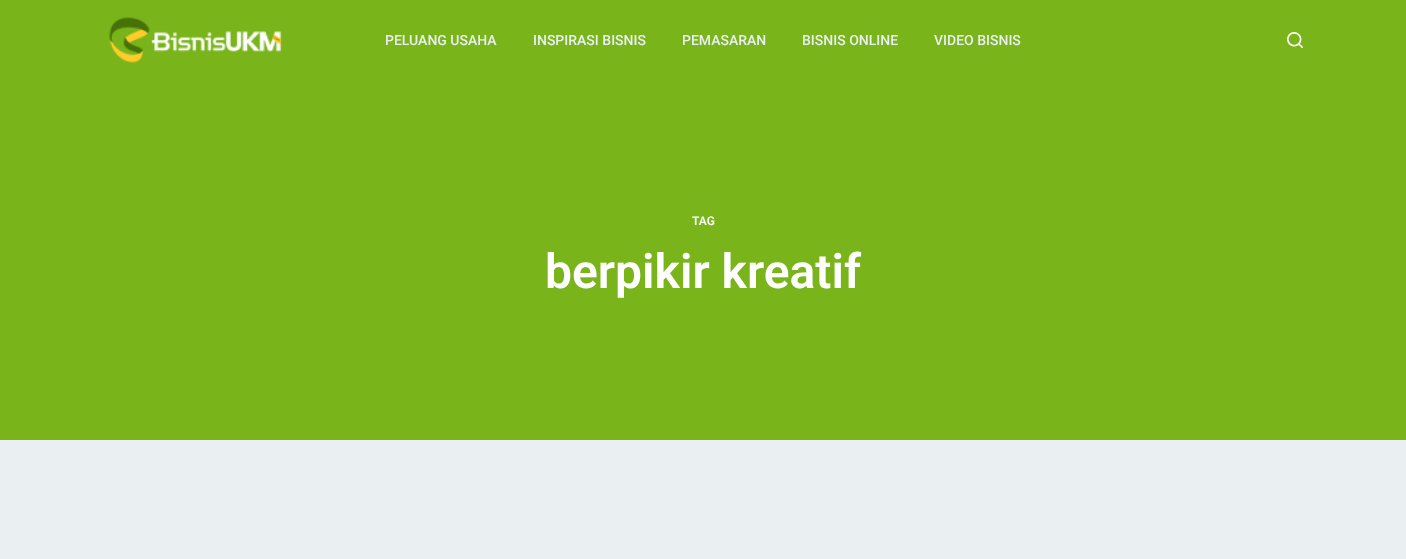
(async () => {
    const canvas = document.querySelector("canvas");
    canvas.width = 1406;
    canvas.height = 559;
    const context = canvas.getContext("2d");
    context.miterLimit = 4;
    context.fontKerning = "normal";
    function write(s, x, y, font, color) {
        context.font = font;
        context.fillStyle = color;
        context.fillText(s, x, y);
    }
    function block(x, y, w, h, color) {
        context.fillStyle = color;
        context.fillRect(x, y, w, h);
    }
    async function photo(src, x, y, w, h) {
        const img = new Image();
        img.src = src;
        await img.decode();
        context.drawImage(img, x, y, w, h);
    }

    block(0, 0, 1406, 559, "rgb(234, 239, 242)");
    block(0, 0, 1406, 440, "rgb(121, 180, 27)");
    await photo("media/1.png", 109, 17, 173, 46);
    write("PELUANG USAHA", 385, 45, "500 14px Roboto", "rgb(234, 239, 242)");
    write("INSPIRASI BISNIS", 533, 45, "500 14px Roboto", "rgb(234, 239, 242)");
    write("PEMASARAN", 682, 45, "500 14px Roboto", "rgb(234, 239, 242)");
    write("BISNIS ONLINE", 802, 45, "500 14px Roboto", "rgb(234, 239, 242)");
    write("VIDEO BISNIS", 934, 45, "500 14px Roboto", "rgb(234, 239, 242)");
    await photo("media/2.png", 1287, 32, 16, 16);
    write("TAG", 692, 225, "600 12px Roboto", "rgb(255, 255, 255)");
    write("berpikir kreatif", 545, 288, "600 48px Roboto", "rgb(255, 255, 255)");
})();
